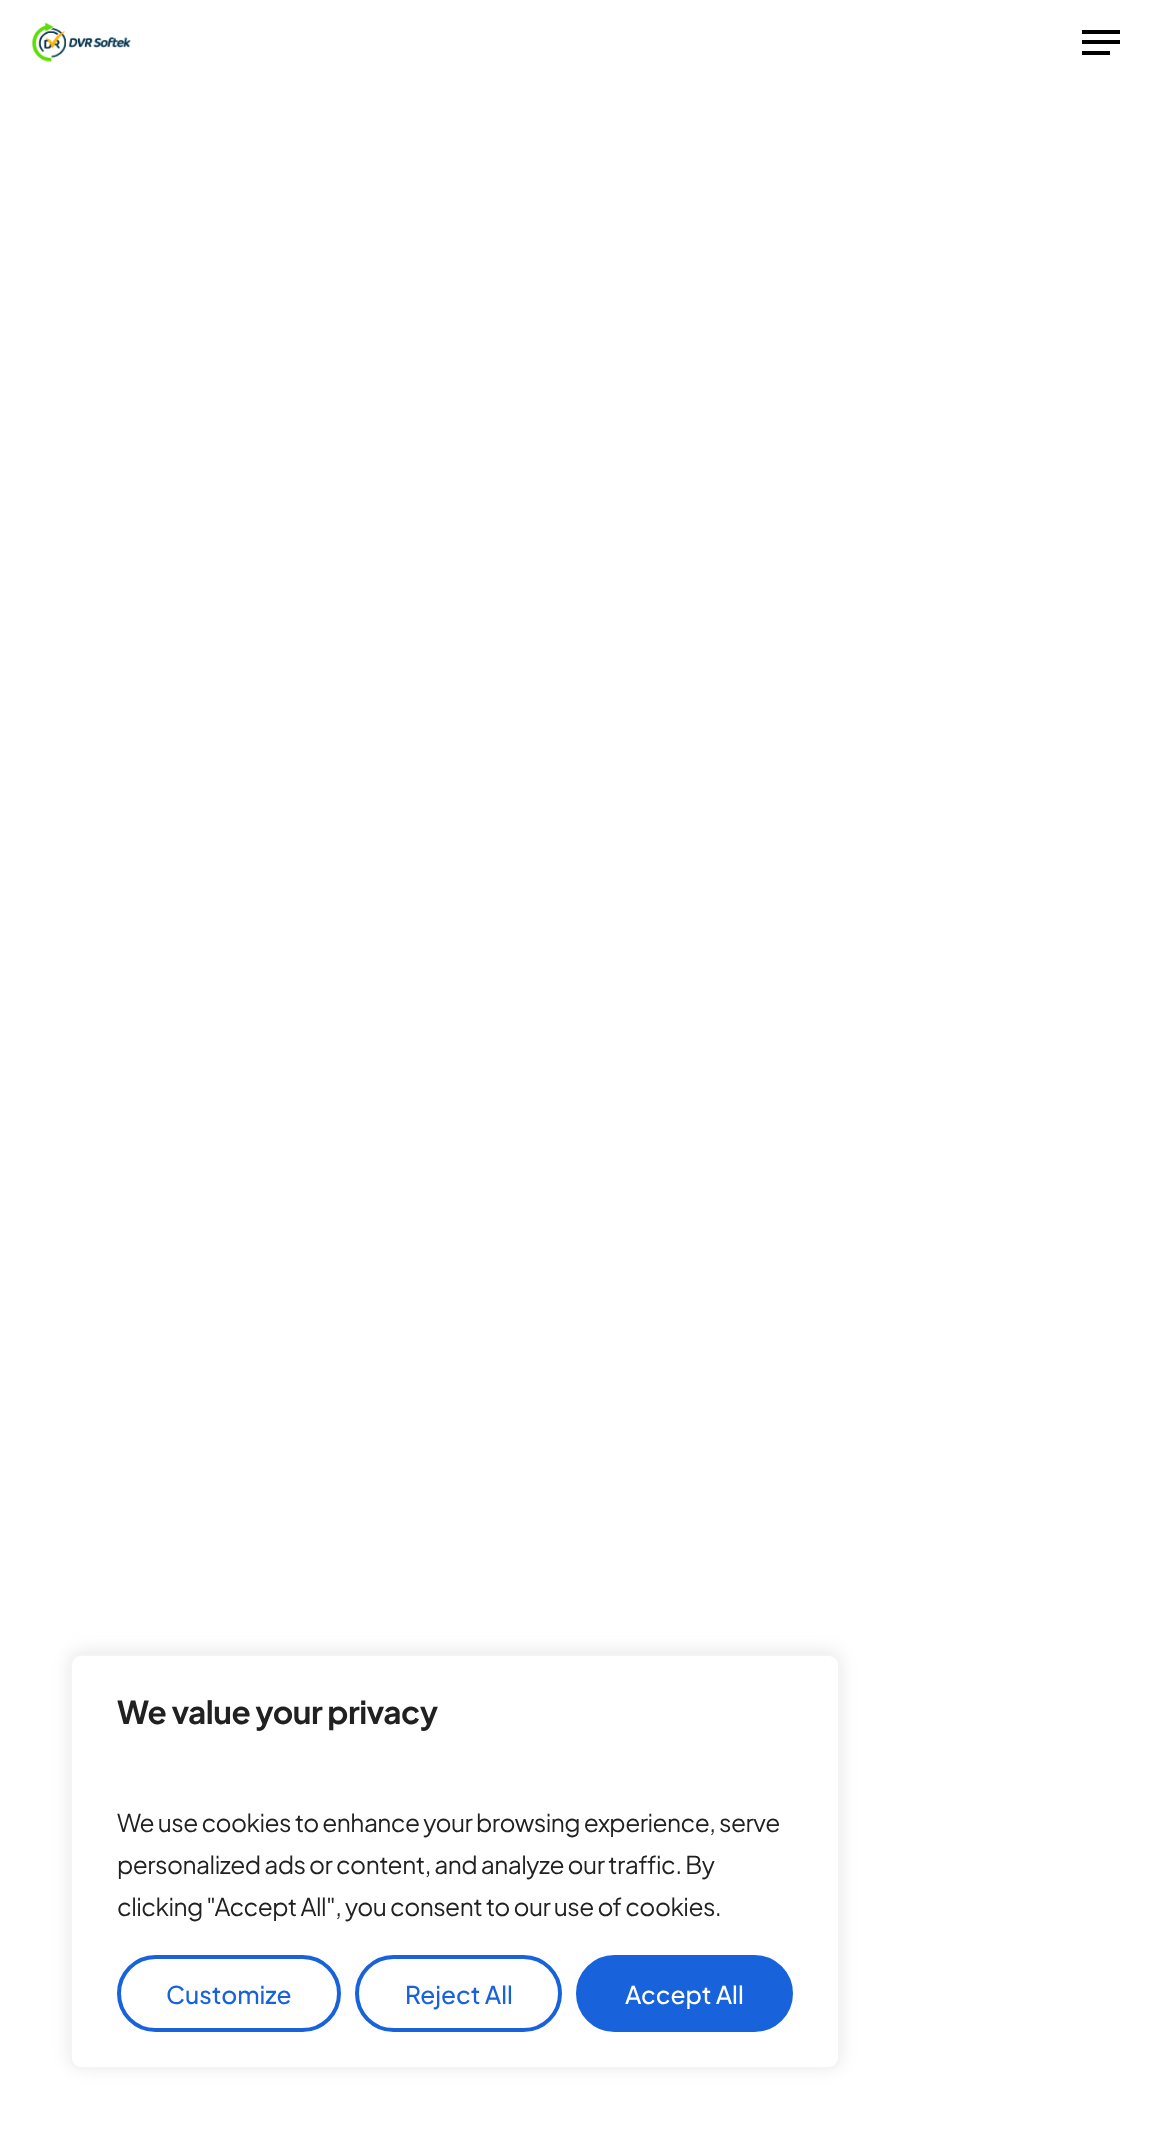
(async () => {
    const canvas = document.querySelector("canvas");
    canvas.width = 1151;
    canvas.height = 2137;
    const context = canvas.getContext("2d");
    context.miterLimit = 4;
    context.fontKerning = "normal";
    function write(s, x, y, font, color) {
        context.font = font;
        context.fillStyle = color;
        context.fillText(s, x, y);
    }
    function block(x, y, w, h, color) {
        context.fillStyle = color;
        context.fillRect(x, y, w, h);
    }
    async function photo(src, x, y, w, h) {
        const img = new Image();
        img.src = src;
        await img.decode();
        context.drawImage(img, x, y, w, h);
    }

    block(0, 0, 1151, 2137, "rgb(255, 255, 255)");
    await photo("media/1.png", 31, 22, 100, 41);
    block(1082, 30, 38, 4, "rgb(0, 0, 0)");
    block(1082, 51, 28, 4, "rgb(0, 0, 0)");
    block(1082, 40, 38, 4, "rgb(0, 0, 0)");
    context.fillStyle = "rgba(172, 171, 171, 0.3)";
    context.filter = "blur(9px)";
    context.beginPath();
    context.roundRect(70, 1652, 770, 415, 11);
    context.fill();
    context.filter = "none";
    context.fillStyle = "rgb(255, 255, 255)";
    context.beginPath();
    context.roundRect(71, 1655, 768, 413, 10);
    context.fill();
    context.strokeStyle = "rgb(244, 244, 244)";
    context.lineWidth = 2;
    context.stroke();
    context.letterSpacing = "-0.53px";
    write("We value your privacy", 117, 1724, "bold 31.5px Plus Jakarta Sans", "rgb(33, 33, 33)");
    write("We use cookies to enhance your browsing experience, serve", 117, 1832, "24.5px Plus Jakarta Sans", "rgb(33, 33, 33)");
    write("personalized ads or content, and analyze our traffic. By", 117, 1874, "24.5px Plus Jakarta Sans", "rgb(33, 33, 33)");
    write("clicking \"Accept All\", you consent to our use of cookies.", 117, 1916, "24.5px Plus Jakarta Sans", "rgb(33, 33, 33)");
    context.beginPath();
    context.roundRect(119, 1957, 220, 73, 36.5);
    context.strokeStyle = "rgb(24, 99, 220)";
    context.lineWidth = 4;
    context.stroke();
    context.letterSpacing = "0px";
    write("Customize", 166, 2004, "500 24.5px Plus Jakarta Sans", "rgb(24, 99, 220)");
    context.beginPath();
    context.roundRect(357, 1957, 203, 73, 36.5);
    context.stroke();
    write("Reject All", 405, 2004, "500 24.5px Plus Jakarta Sans", "rgb(24, 99, 220)");
    context.beginPath();
    context.roundRect(578, 1957, 213, 73, 36.5);
    context.fill();
    context.stroke();
    write("Accept All", 625, 2004, "500 24.5px Plus Jakarta Sans", "rgb(255, 255, 255)");
})();
